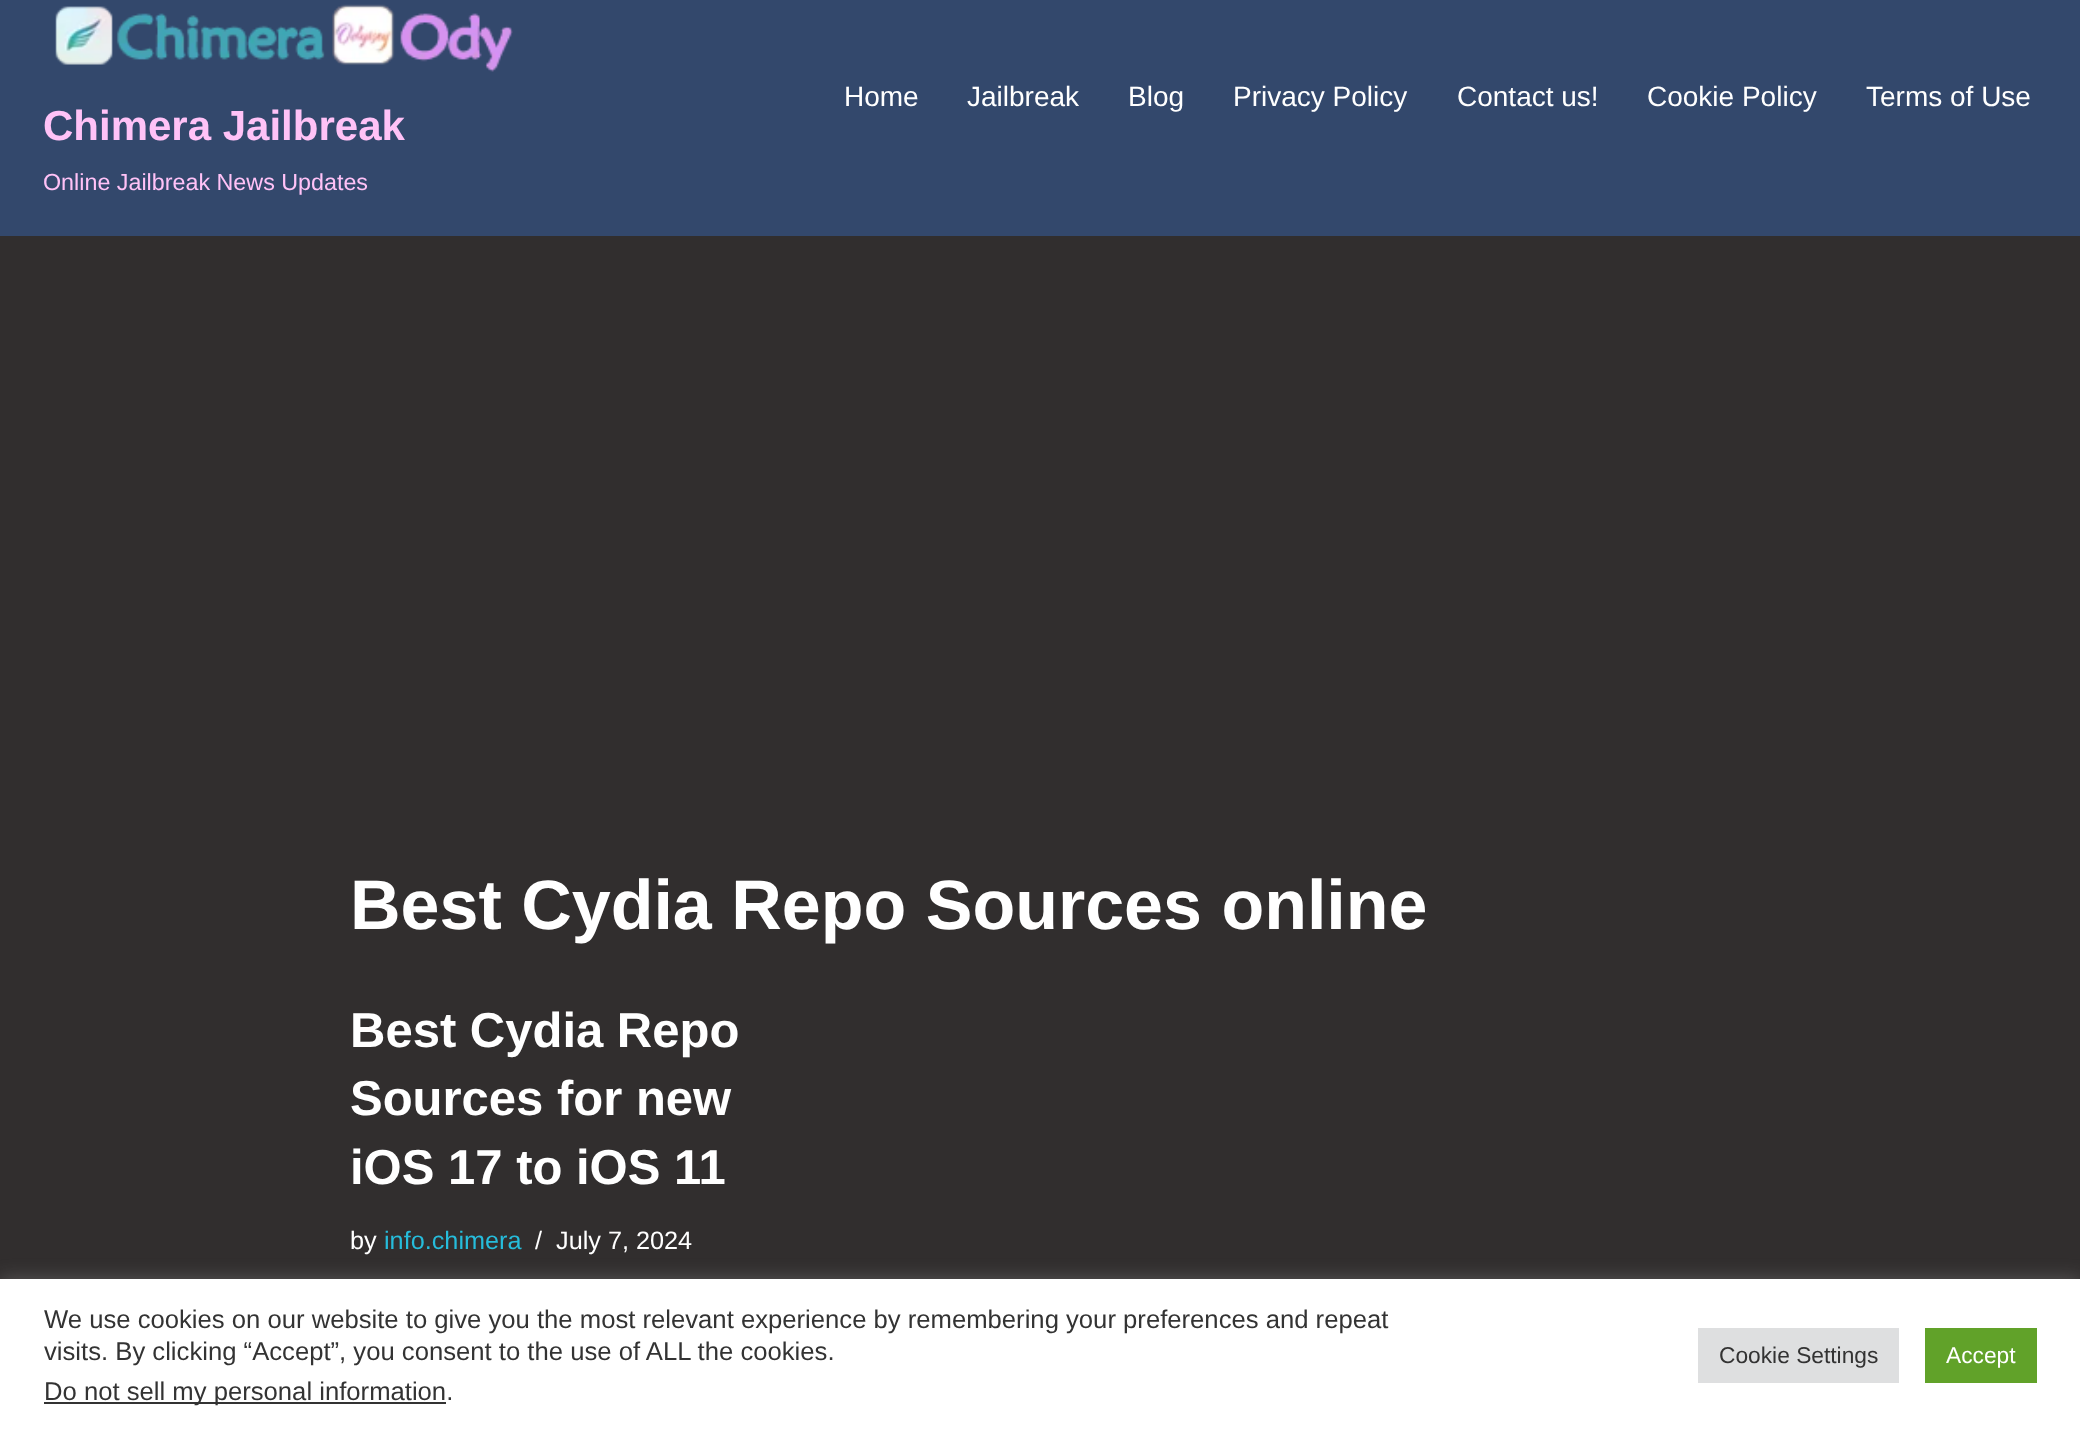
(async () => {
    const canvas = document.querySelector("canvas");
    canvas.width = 2080;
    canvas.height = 1431;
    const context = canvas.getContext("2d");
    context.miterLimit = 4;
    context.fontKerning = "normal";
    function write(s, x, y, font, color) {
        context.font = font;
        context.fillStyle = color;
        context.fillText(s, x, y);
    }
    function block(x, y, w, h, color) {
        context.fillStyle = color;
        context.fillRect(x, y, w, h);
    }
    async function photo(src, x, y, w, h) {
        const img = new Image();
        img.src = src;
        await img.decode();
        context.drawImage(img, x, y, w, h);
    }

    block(0, 0, 2080, 1431, "rgb(49, 46, 46)");
    block(0, 0, 2080, 236, "rgb(51, 72, 108)");
    write("Home", 844, 106, "28px Liberation Sans", "rgb(255, 255, 255)");
    write("Jailbreak", 967, 106, "28px Liberation Sans", "rgb(255, 255, 255)");
    write("Blog", 1128, 106, "28px Liberation Sans", "rgb(255, 255, 255)");
    write("Privacy Policy", 1233, 106, "28px Liberation Sans", "rgb(255, 255, 255)");
    write("Contact us!", 1457, 106, "28px Liberation Sans", "rgb(255, 255, 255)");
    write("Cookie Policy", 1647, 106, "28px Liberation Sans", "rgb(255, 255, 255)");
    write("Terms of Use", 1866, 106, "28px Liberation Sans", "rgb(255, 255, 255)");
    await photo("media/1.png", 55, 4, 458, 68);
    write("Chimera Jailbreak", 43, 140, "bold 42px Liberation Sans", "rgb(255, 194, 247)");
    write("Online Jailbreak News Updates", 43, 190, "23.3px Liberation Sans", "rgb(255, 194, 247)");
    write("Best Cydia Repo Sources online", 350, 929, "bold 70px Liberation Sans", "rgb(255, 255, 255)");
    write("Best Cydia Repo", 350, 1047, "bold 49px Liberation Sans", "rgb(255, 255, 255)");
    write("Sources for new", 350, 1115, "bold 49px Liberation Sans", "rgb(255, 255, 255)");
    write("iOS 17 to iOS 11", 350, 1184, "bold 49px Liberation Sans", "rgb(255, 255, 255)");
    write("by", 350, 1249, "25.25px Liberation Sans", "rgb(255, 255, 255)");
    write("info.chimera", 384, 1249, "25.25px Liberation Sans", "rgb(38, 188, 219)");
    write("/", 535, 1249, "25.25px Liberation Sans", "rgb(255, 255, 255)");
    write("July 7, 2024", 556, 1249, "25.25px Liberation Sans", "rgb(255, 255, 255)");
    context.fillStyle = "rgba(172, 171, 171, 0.3)";
    context.filter = "blur(9px)";
    context.beginPath();
    context.rect(0, 1278, 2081, 152);
    context.fill();
    context.filter = "none";
    block(0, 1279, 2080, 152, "rgb(255, 255, 255)");
    write("We use cookies on our website to give you the most relevant experience by remembering your preferences and repeat", 44, 1328, "25.67px Liberation Sans", "rgb(51, 51, 51)");
    write("visits. By clicking “Accept”, you consent to the use of ALL the cookies.", 44, 1360, "25.67px Liberation Sans", "rgb(51, 51, 51)");
    block(44, 1402, 402, 2, "rgb(51, 51, 51)");
    write("Do not sell my personal information.", 44, 1400, "25.67px Liberation Sans", "rgb(51, 51, 51)");
    block(1698, 1328, 201, 55, "rgb(222, 223, 224)");
    write("Cookie Settings", 1719, 1363, "22.75px Liberation Sans", "rgb(51, 51, 51)");
    block(1925, 1328, 112, 55, "rgb(97, 162, 41)");
    write("Accept", 1946, 1363, "22.75px Liberation Sans", "rgb(255, 255, 255)");
})();
